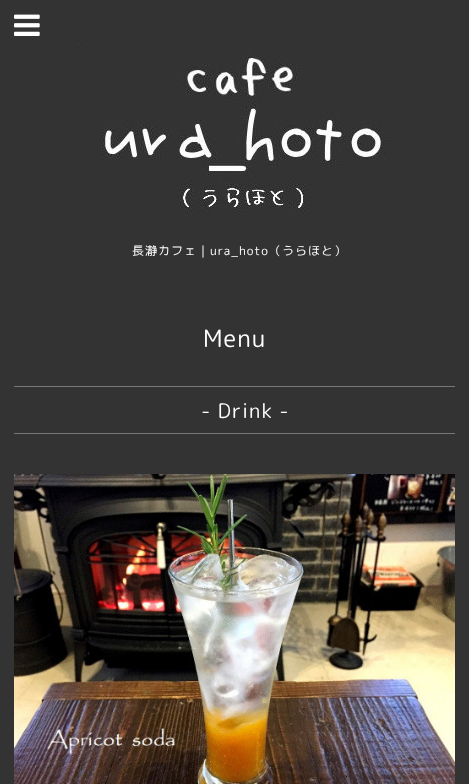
(async () => {
    const canvas = document.querySelector("canvas");
    canvas.width = 469;
    canvas.height = 784;
    const context = canvas.getContext("2d");
    context.miterLimit = 4;
    context.fontKerning = "normal";
    function write(s, x, y, font, color) {
        context.font = font;
        context.fillStyle = color;
        context.fillText(s, x, y);
    }
    function block(x, y, w, h, color) {
        context.fillStyle = color;
        context.fillRect(x, y, w, h);
    }
    async function photo(src, x, y, w, h) {
        const img = new Image();
        img.src = src;
        await img.decode();
        context.drawImage(img, x, y, w, h);
    }

    block(0, 0, 469, 784, "rgb(51, 51, 51)");
    await photo("media/1.png", 14, 14, 26, 22);
    await photo("media/2.png", 77, 40, 310, 176);
    context.letterSpacing = "1px";
    write("長瀞カフェ｜ura_hoto（うらほと）", 132, 255, "12px 'Rounded Mplus 1c'", "rgb(255, 255, 255)");
    write("Menu", 203, 347, "24px 'Rounded Mplus 1c'", "rgb(255, 255, 255)");
    block(14, 386, 441, 1, "rgb(119, 119, 119)");
    block(14, 433, 441, 1, "rgb(119, 119, 119)");
    write("- Drink -", 201, 418, "20px 'Rounded Mplus 1c'", "rgb(255, 255, 255)");
    await photo("media/3.png", 14, 474, 441, 310);
})();
